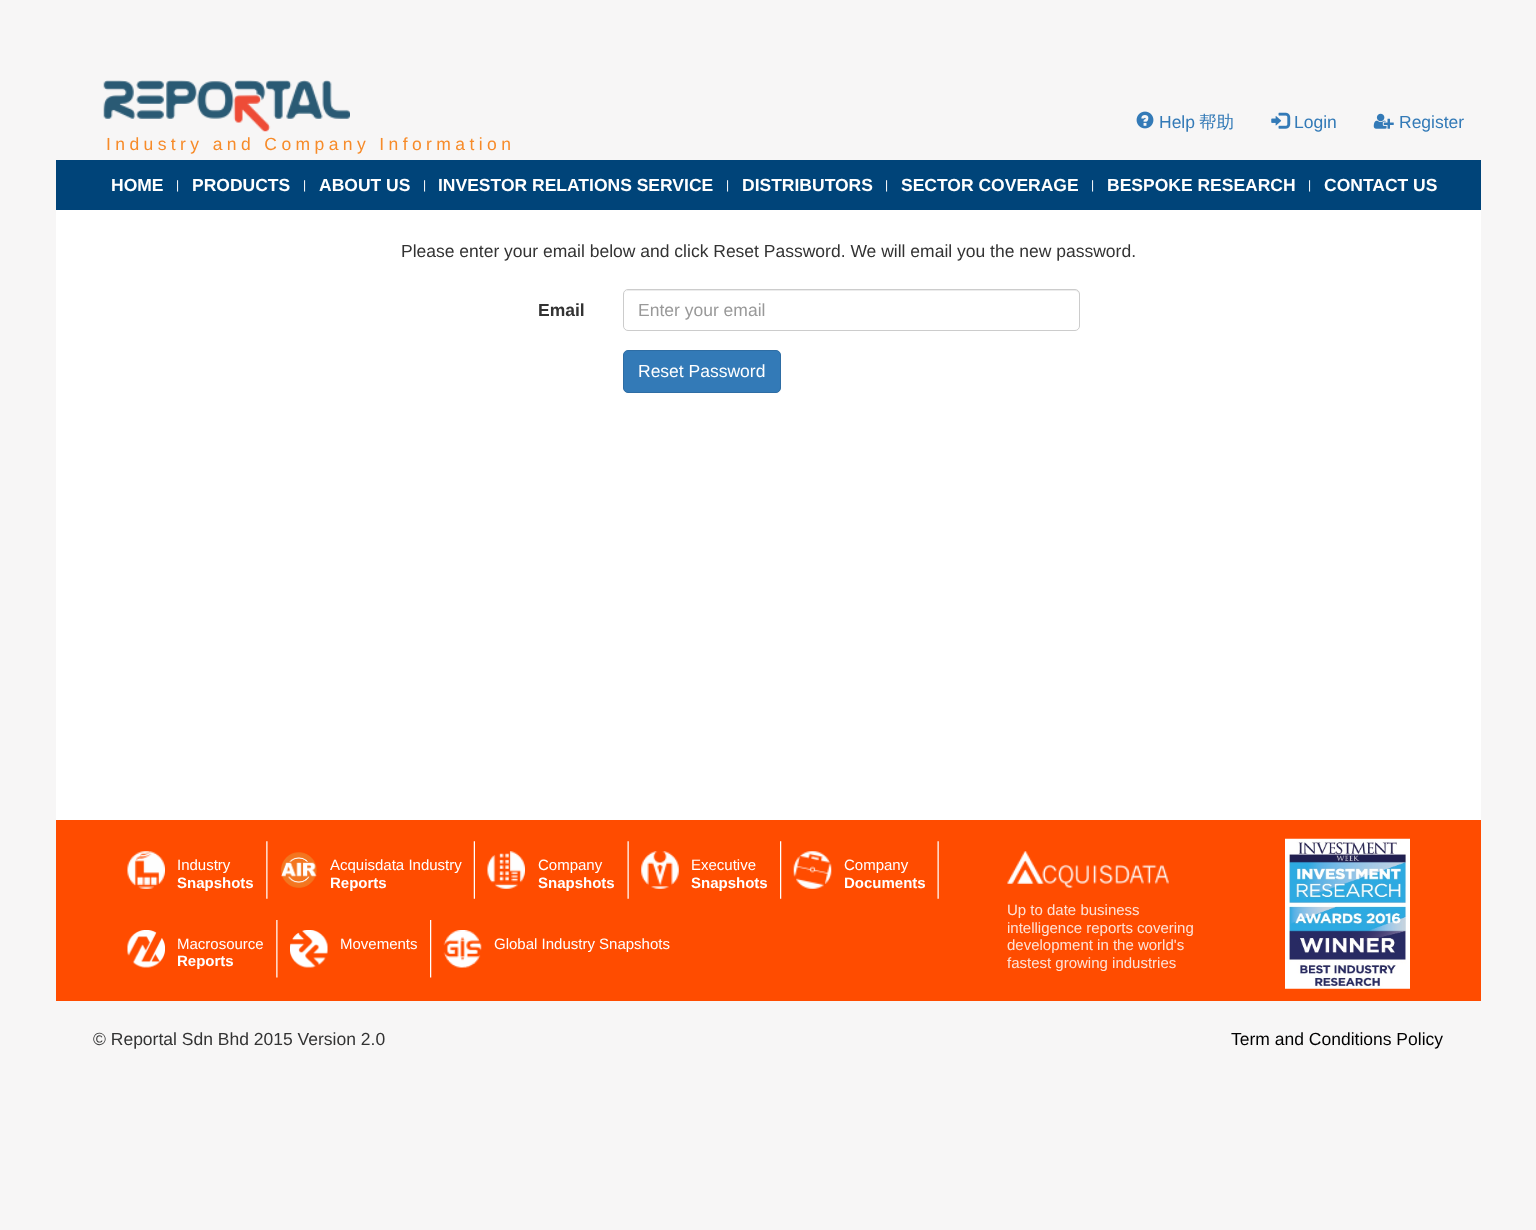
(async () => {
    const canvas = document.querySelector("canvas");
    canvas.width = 1536;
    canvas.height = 1230;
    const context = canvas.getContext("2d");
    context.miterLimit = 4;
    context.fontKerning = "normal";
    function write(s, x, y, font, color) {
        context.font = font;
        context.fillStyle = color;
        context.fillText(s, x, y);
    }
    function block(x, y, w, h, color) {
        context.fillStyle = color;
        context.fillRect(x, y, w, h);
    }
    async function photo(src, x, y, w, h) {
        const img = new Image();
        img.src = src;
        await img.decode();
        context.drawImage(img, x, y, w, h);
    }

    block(0, 0, 1536, 1230, "rgb(247, 246, 246)");
    await photo("media/1.png", 1136, 111, 18, 18);
    write("Help", 1159, 128, "17.5px Liberation Sans", "rgb(51, 122, 183)");
    write("帮助", 1199, 128, "500 17.5px WenQuanYi Zen Hei", "rgb(51, 122, 183)");
    await photo("media/2.png", 1271, 112, 20, 17);
    write("Login", 1294, 128, "17.5px Liberation Sans", "rgb(51, 122, 183)");
    await photo("media/3.png", 1373, 113, 21, 16);
    write("Register", 1399, 128, "17.5px Liberation Sans", "rgb(51, 122, 183)");
    await photo("media/4.png", 103, 80, 247, 52);
    context.letterSpacing = "4.4px";
    write("Industry and Company Information", 106, 150, "17.5px Liberation Sans", "rgb(247, 139, 41)");
    block(56, 160, 1425, 50, "rgb(0, 68, 121)");
    context.letterSpacing = "0px";
    write("HOME", 111, 191, "bold 17.5px Liberation Sans", "rgb(255, 255, 255)");
    write("|", 176, 189, "12px Liberation Sans", "rgb(255, 255, 255)");
    write("PRODUCTS", 192, 191, "bold 17.5px Liberation Sans", "rgb(255, 255, 255)");
    write("|", 303, 189, "12px Liberation Sans", "rgb(255, 255, 255)");
    write("ABOUT US", 319, 191, "bold 17.5px Liberation Sans", "rgb(255, 255, 255)");
    write("|", 423, 189, "12px Liberation Sans", "rgb(255, 255, 255)");
    write("INVESTOR RELATIONS SERVICE", 438, 191, "bold 17.5px Liberation Sans", "rgb(255, 255, 255)");
    write("|", 726, 189, "12px Liberation Sans", "rgb(255, 255, 255)");
    write("DISTRIBUTORS", 742, 191, "bold 17.5px Liberation Sans", "rgb(255, 255, 255)");
    write("|", 885, 189, "12px Liberation Sans", "rgb(255, 255, 255)");
    write("SECTOR COVERAGE", 901, 191, "bold 17.5px Liberation Sans", "rgb(255, 255, 255)");
    write("|", 1091, 189, "12px Liberation Sans", "rgb(255, 255, 255)");
    write("BESPOKE RESEARCH", 1107, 191, "bold 17.5px Liberation Sans", "rgb(255, 255, 255)");
    write("|", 1308, 189, "12px Liberation Sans", "rgb(255, 255, 255)");
    write("CONTACT US", 1324, 191, "bold 17.5px Liberation Sans", "rgb(255, 255, 255)");
    block(56, 210, 1425, 610, "rgb(255, 255, 255)");
    write("Please enter your email below and click Reset Password. We will email you the new password.", 401, 257, "17.5px Liberation Sans", "rgb(51, 51, 51)");
    write("Email", 538, 316, "bold 17.5px Liberation Sans", "rgb(51, 51, 51)");
    context.fillStyle = "rgb(236, 236, 236)";
    context.beginPath();
    context.moveTo(628, 291);
    context.lineTo(1075, 291);
    context.bezierCurveTo(1077, 291, 1079, 293, 1079, 295);
    context.bezierCurveTo(1079, 292, 1078, 290, 1075, 290);
    context.lineTo(628, 290);
    context.lineTo(626, 291);
    context.lineTo(625, 292);
    context.lineTo(624, 295);
    context.bezierCurveTo(624, 293, 625, 291, 628, 291);
    context.closePath();
    context.fill();
    context.beginPath();
    context.roundRect(623.5, 289.5, 456, 41, 4.5);
    context.strokeStyle = "rgb(204, 204, 204)";
    context.stroke();
    write("Enter your email", 638, 316, "17.5px Liberation Sans", "rgb(153, 153, 153)");
    context.fillStyle = "rgb(51, 122, 183)";
    context.beginPath();
    context.roundRect(623.5, 350.5, 157, 42, 4.5);
    context.fill();
    context.strokeStyle = "rgb(46, 109, 164)";
    context.stroke();
    write("Reset Password", 638, 377, "17.5px Liberation Sans", "rgb(255, 255, 255)");
    block(56, 820, 1425, 181, "rgb(255, 76, 0)");
    await photo("media/5.png", 127, 851, 38, 38);
    write("Industry", 177, 870, "15px Liberation Sans", "rgb(255, 255, 255)");
    write("Snapshots", 177, 888, "bold 15px Liberation Sans", "rgb(255, 255, 255)");
    await photo("media/6.png", 266, 841, 2, 58);
    await photo("media/7.png", 281, 852, 36, 36);
    write("Acquisdata Industry", 330, 870, "15px Liberation Sans", "rgb(255, 255, 255)");
    write("Reports", 330, 888, "bold 15px Liberation Sans", "rgb(255, 255, 255)");
    await photo("media/8.png", 473, 841, 2, 58);
    await photo("media/9.png", 487, 851, 38, 38);
    write("Company", 538, 870, "15px Liberation Sans", "rgb(255, 255, 255)");
    write("Snapshots", 538, 888, "bold 15px Liberation Sans", "rgb(255, 255, 255)");
    await photo("media/10.png", 627, 841, 2, 58);
    await photo("media/11.png", 641, 851, 38, 38);
    write("Executive", 691, 870, "15px Liberation Sans", "rgb(255, 255, 255)");
    write("Snapshots", 691, 888, "bold 15px Liberation Sans", "rgb(255, 255, 255)");
    await photo("media/12.png", 780, 841, 2, 58);
    await photo("media/13.png", 793, 851, 39, 38);
    write("Company", 844, 870, "15px Liberation Sans", "rgb(255, 255, 255)");
    write("Documents", 844, 888, "bold 15px Liberation Sans", "rgb(255, 255, 255)");
    await photo("media/10.png", 937, 841, 2, 58);
    await photo("media/14.png", 127, 930, 38, 38);
    write("Macrosource", 177, 949, "15px Liberation Sans", "rgb(255, 255, 255)");
    write("Reports", 177, 966, "bold 15px Liberation Sans", "rgb(255, 255, 255)");
    await photo("media/15.png", 276, 920, 2, 58);
    await photo("media/16.png", 290, 930, 38, 38);
    write("Movements", 340, 949, "15px Liberation Sans", "rgb(255, 255, 255)");
    await photo("media/17.png", 430, 920, 2, 58);
    await photo("media/18.png", 443, 930, 39, 38);
    write("Global Industry Snapshots", 494, 949, "15px Liberation Sans", "rgb(255, 255, 255)");
    await photo("media/19.png", 1007, 851, 162, 37);
    write("Up to date business", 1007, 915, "15px Liberation Sans", "rgb(254, 226, 214)");
    write("intelligence reports covering", 1007, 933, "15px Liberation Sans", "rgb(254, 226, 214)");
    write("development in the world's", 1007, 950, "15px Liberation Sans", "rgb(254, 226, 214)");
    write("fastest growing industries", 1007, 968, "15px Liberation Sans", "rgb(254, 226, 214)");
    await photo("media/20.png", 1285, 838, 125, 151);
    write("© Reportal Sdn Bhd 2015 Version 2.0", 93, 1045, "17.5px Liberation Sans", "rgb(51, 51, 51)");
    write("Term and Conditions Policy", 1231, 1045, "17.5px Liberation Sans", "rgb(0, 0, 0)");
})();
